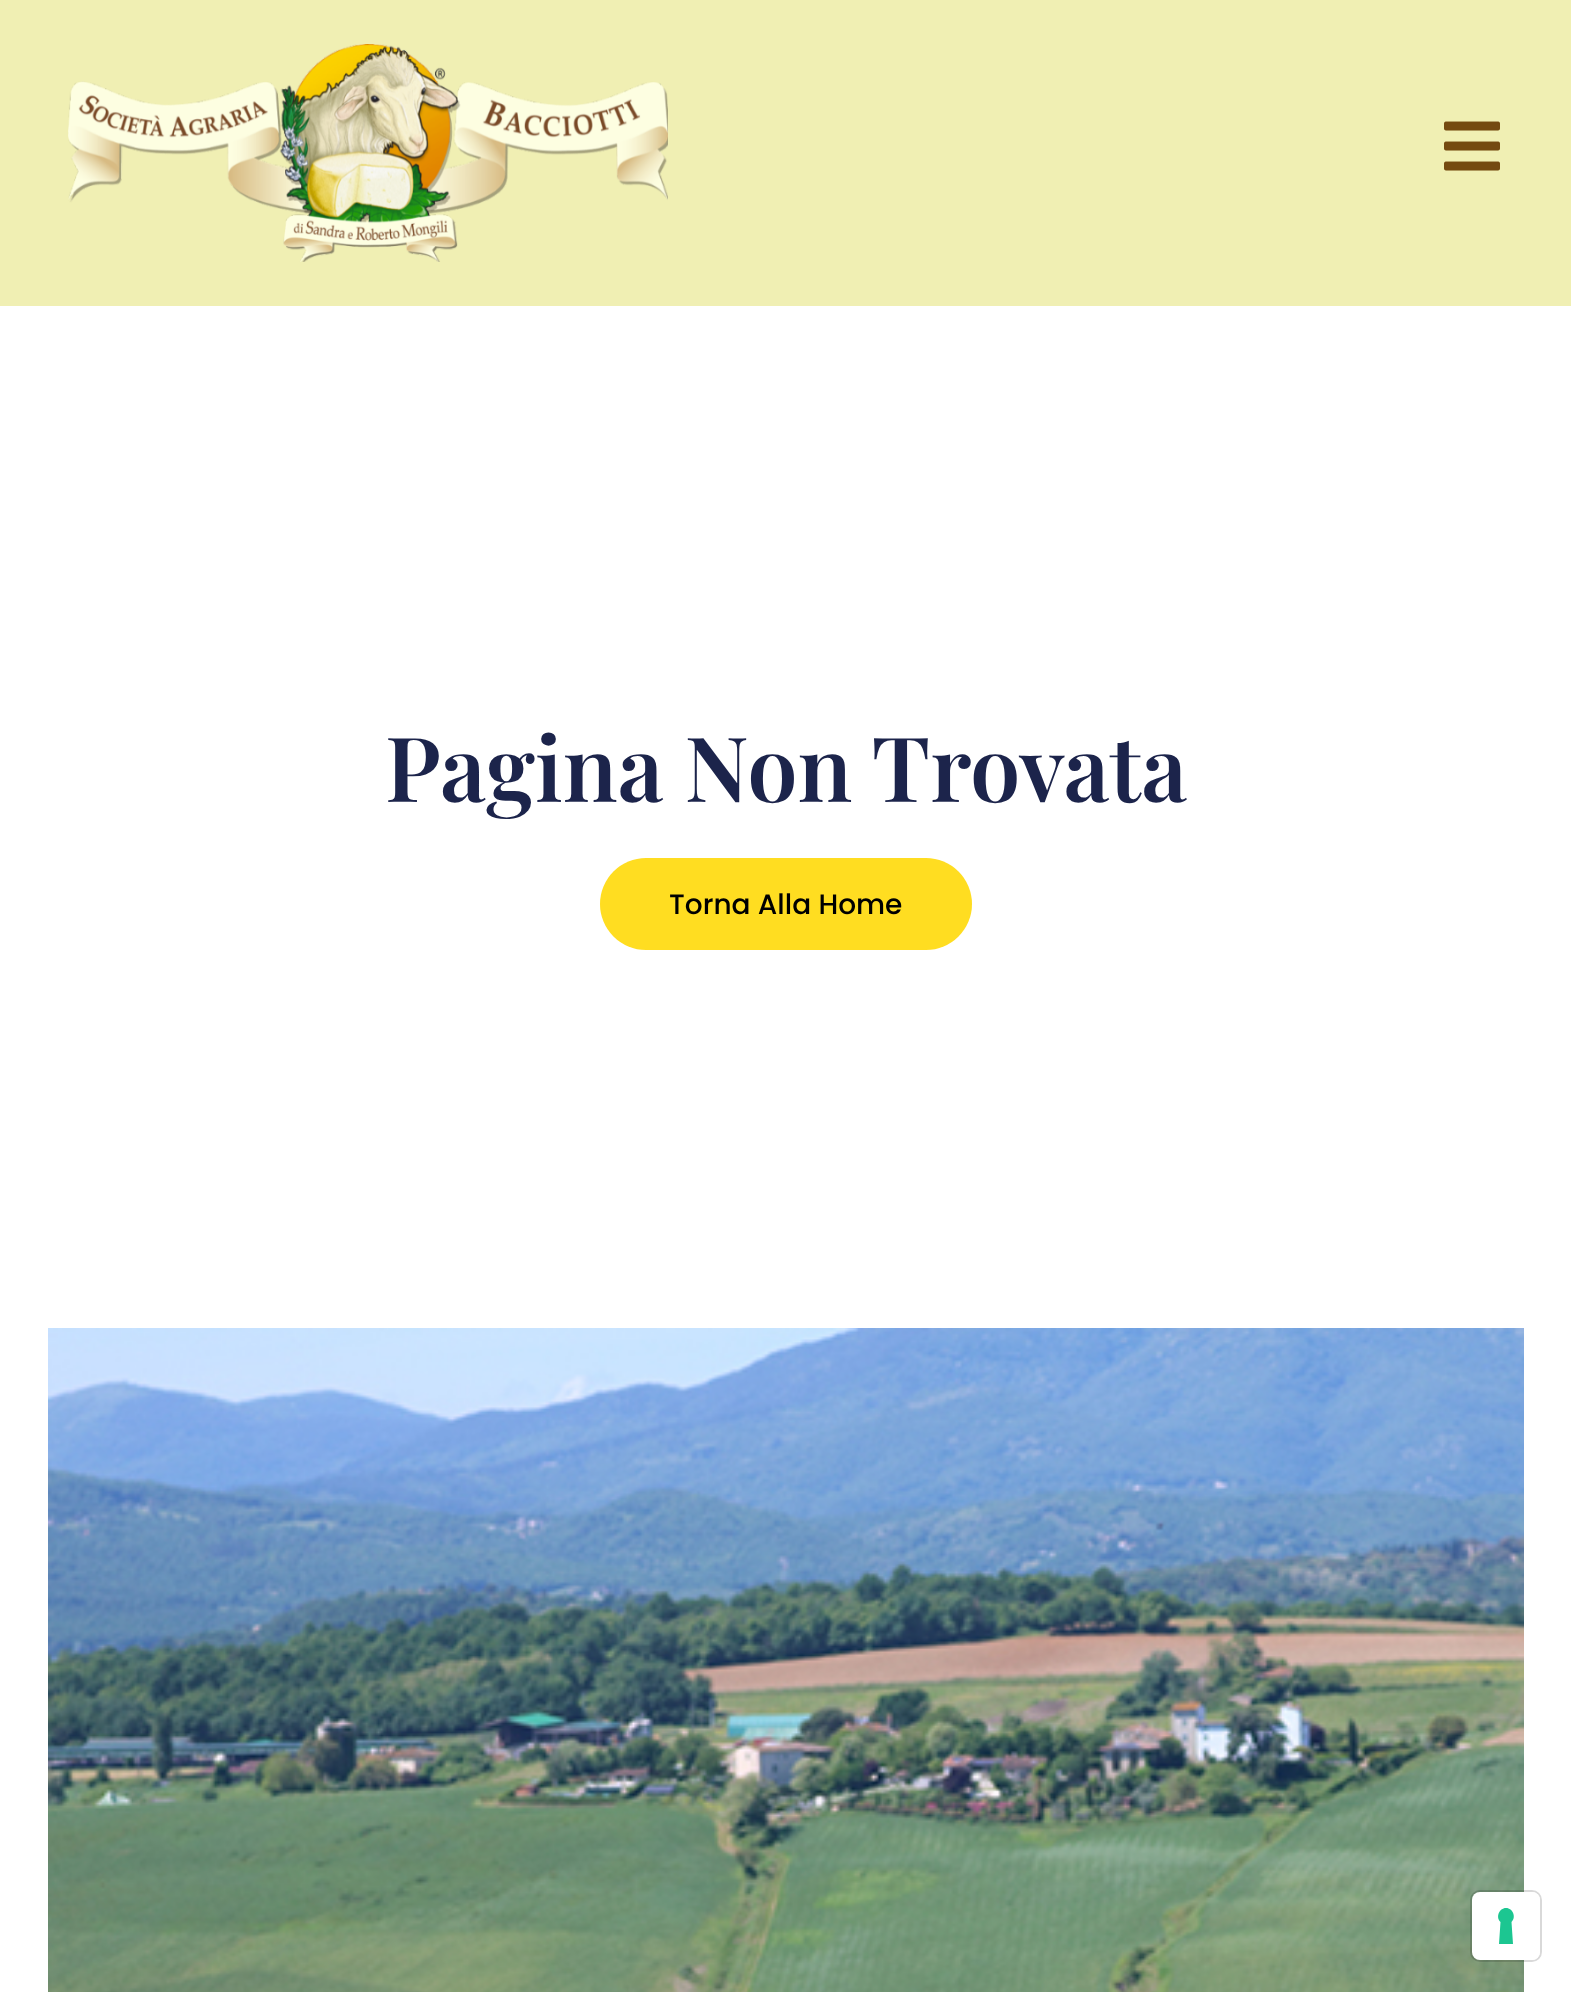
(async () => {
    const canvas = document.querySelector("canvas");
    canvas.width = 1571;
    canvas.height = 1992;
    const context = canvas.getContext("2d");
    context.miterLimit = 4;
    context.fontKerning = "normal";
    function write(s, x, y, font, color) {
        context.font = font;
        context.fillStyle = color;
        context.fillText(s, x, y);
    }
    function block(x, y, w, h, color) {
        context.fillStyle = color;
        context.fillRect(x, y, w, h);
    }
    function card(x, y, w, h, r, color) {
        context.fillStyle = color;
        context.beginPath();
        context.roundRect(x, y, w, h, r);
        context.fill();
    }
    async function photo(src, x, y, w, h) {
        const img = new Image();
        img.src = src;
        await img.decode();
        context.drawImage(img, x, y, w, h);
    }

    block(0, 0, 1571, 1992, "rgb(255, 255, 255)");
    block(0, 0, 1571, 306, "rgb(240, 239, 179)");
    await photo("media/1.png", 68, 44, 600, 218);
    await photo("media/2.png", 1444, 121, 56, 50);
    write("Pagina Non Trovata", 385, 802, "600 90px Playfair Display", "rgb(28, 36, 75)");
    card(600, 858, 372, 92, 46, "rgb(255, 221, 33)");
    write("Torna Alla Home", 669, 914, "500 28px Poppins", "rgb(0, 0, 0)");
    await photo("media/3.png", 48, 1328, 1476, 664);
    context.beginPath();
    context.roundRect(1471, 1891, 70, 70, 9);
    context.strokeStyle = "rgba(0, 0, 0, 0.15)";
    context.lineWidth = 2;
    context.stroke();
    card(1472, 1892, 68, 68, 8, "rgb(255, 255, 255)");
    context.fillStyle = "rgb(28, 198, 145)";
    context.beginPath();
    context.moveTo(1506, 1908);
    context.bezierCurveTo(1513, 1908, 1516.5, 1917.5, 1511.5, 1922);
    context.lineTo(1513, 1944);
    context.lineTo(1499, 1944);
    context.lineTo(1500.5, 1922);
    context.bezierCurveTo(1495.5, 1917.5, 1499, 1908, 1506, 1908);
    context.closePath();
    context.fill("evenodd");
})();
